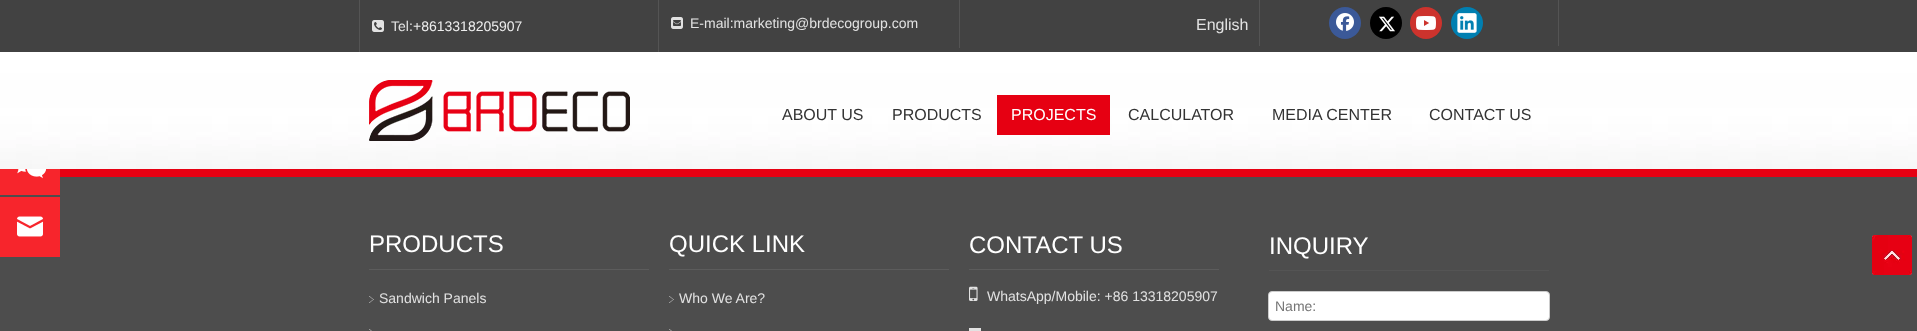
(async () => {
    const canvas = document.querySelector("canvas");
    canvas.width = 1917;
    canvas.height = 331;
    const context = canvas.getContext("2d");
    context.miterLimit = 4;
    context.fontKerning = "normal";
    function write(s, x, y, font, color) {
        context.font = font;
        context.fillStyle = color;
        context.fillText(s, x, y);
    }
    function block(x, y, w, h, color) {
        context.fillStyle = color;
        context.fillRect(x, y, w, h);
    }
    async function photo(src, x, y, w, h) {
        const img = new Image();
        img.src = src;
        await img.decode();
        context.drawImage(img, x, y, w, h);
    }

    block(0, 0, 1917, 331, "rgb(255, 255, 255)");
    block(0, 0, 1917, 52, "rgb(66, 66, 66)");
    block(658, 0, 1, 52, "rgb(84, 84, 84)");
    block(359, 0, 1, 52, "rgb(84, 84, 84)");
    await photo("media/1.png", 372, 20, 12, 12);
    write("Tel:", 391, 31, "14px Liberation Sans", "rgb(226, 226, 226)");
    write("+8613318205907", 413, 31, "14px Liberation Sans", "rgb(238, 238, 238)");
    await photo("media/2.png", 671, 17, 12, 12);
    write("E-mail:marketing@brdecogroup.com", 690, 28, "14px Liberation Sans", "rgb(226, 226, 226)");
    block(959, 0, 1, 48, "rgb(84, 84, 84)");
    write("English", 1196, 30, "16px Liberation Sans", "rgb(226, 226, 226)");
    block(1558, 0, 1, 46, "rgb(84, 84, 84)");
    block(1259, 0, 1, 46, "rgb(84, 84, 84)");
    context.fillStyle = "rgb(59, 89, 152)";
    context.beginPath();
    context.arc(1345, 23, 16, 0, Math.PI * 2);
    context.fill();
    await photo("media/3.png", 1336, 13, 18, 18);
    context.fillStyle = "rgb(0, 0, 0)";
    context.beginPath();
    context.arc(1386, 23, 16, 0, Math.PI * 2);
    context.fill();
    await photo("media/4.png", 1379, 16, 16, 16);
    context.fillStyle = "rgb(205, 51, 45)";
    context.beginPath();
    context.arc(1426, 23, 16, 0, Math.PI * 2);
    context.fill();
    await photo("media/5.png", 1416, 16, 20, 14);
    context.fillStyle = "rgb(0, 127, 177)";
    context.beginPath();
    context.arc(1467, 23, 16, 0, Math.PI * 2);
    context.fill();
    await photo("media/6.png", 1457, 13, 20, 20);
    await photo("media/7.png", 0, 73, 1917, 96);
    await photo("media/8.png", 369, 80, 261, 61);
    write("ABOUT US", 782, 120, "16px Liberation Sans", "rgb(51, 51, 51)");
    write("PRODUCTS", 892, 120, "16px Liberation Sans", "rgb(51, 51, 51)");
    block(997, 95, 113, 40, "rgb(230, 0, 18)");
    write("PROJECTS", 1011, 120, "16px Liberation Sans", "rgb(255, 255, 255)");
    write("CALCULATOR", 1128, 120, "16px Liberation Sans", "rgb(51, 51, 51)");
    write("MEDIA CENTER", 1272, 120, "16px Liberation Sans", "rgb(51, 51, 51)");
    write("CONTACT US", 1429, 120, "16px Liberation Sans", "rgb(51, 51, 51)");
    block(0, 177, 1917, 154, "rgb(77, 77, 77)");
    block(60, 169, 1857, 8, "rgb(230, 0, 18)");
    block(0, 169, 60, 26, "rgb(247, 37, 44)");
    await photo("media/9.png", 17, 169, 30, 10);
    block(0, 197, 60, 60, "rgb(247, 37, 44)");
    await photo("media/10.png", 17, 216, 26, 21);
    block(369, 269, 280, 1, "rgb(92, 92, 92)");
    write("PRODUCTS", 369, 252, "24px Liberation Sans", "rgb(255, 255, 255)");
    await photo("media/11.png", 369, 296, 5, 7);
    write("Sandwich Panels", 379, 303, "14px Liberation Sans", "rgb(226, 226, 226)");
    await photo("media/12.png", 369, 329, 3, 2);
    block(669, 269, 280, 1, "rgb(92, 92, 92)");
    write("QUICK LINK", 669, 252, "24px Liberation Sans", "rgb(255, 255, 255)");
    await photo("media/13.png", 669, 296, 5, 7);
    write("Who We Are?", 679, 303, "14px Liberation Sans", "rgb(226, 226, 226)");
    await photo("media/14.png", 669, 329, 3, 2);
    block(969, 269, 250, 1, "rgb(92, 92, 92)");
    write("CONTACT US", 969, 253, "24px Liberation Sans", "rgb(255, 255, 255)");
    await photo("media/15.png", 969, 286, 9, 15);
    write("WhatsApp/Mobile: +86 13318205907", 987, 301, "14px Liberation Sans", "rgb(226, 226, 226)");
    block(969, 328, 12, 3, "rgb(226, 226, 226)");
    block(1269, 270, 280, 1, "rgb(84, 84, 84)");
    write("INQUIRY", 1269, 254, "24px Liberation Sans", "rgb(255, 255, 255)");
    context.beginPath();
    context.roundRect(1268.5, 291.5, 281, 29, 3.5);
    context.fill();
    context.strokeStyle = "rgb(204, 204, 204)";
    context.stroke();
    write("Name:", 1275, 311, "14px Liberation Sans", "rgb(117, 117, 117)");
    await photo("media/16.png", 1872, 235, 40, 40);
})();
